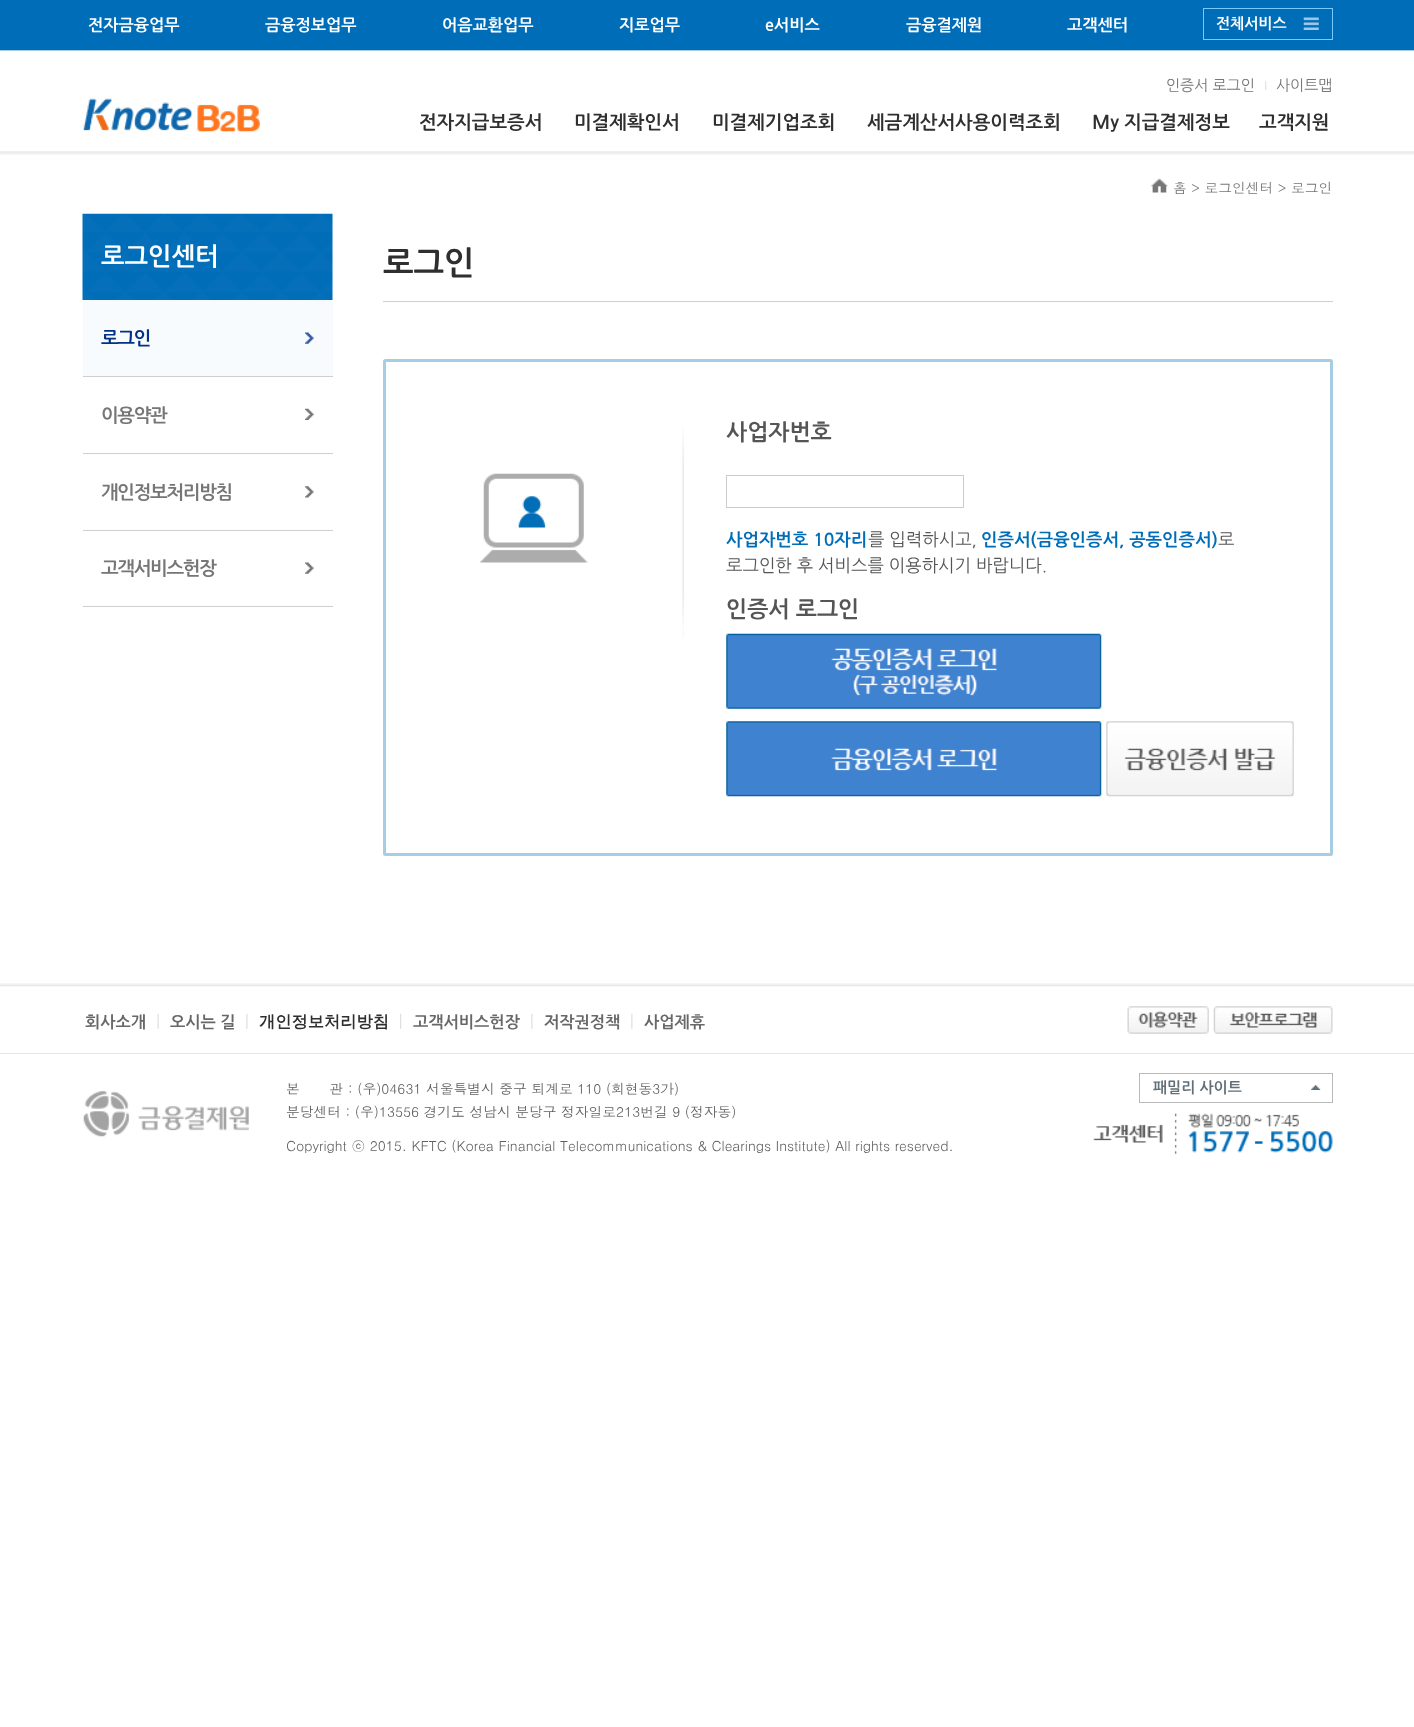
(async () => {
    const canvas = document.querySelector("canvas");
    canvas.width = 1414;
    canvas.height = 1727;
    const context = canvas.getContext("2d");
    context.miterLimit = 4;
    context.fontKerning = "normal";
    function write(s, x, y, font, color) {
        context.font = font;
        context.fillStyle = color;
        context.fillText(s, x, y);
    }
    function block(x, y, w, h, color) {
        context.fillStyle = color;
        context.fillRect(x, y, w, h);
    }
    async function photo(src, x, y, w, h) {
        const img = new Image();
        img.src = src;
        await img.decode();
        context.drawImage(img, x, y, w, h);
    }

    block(0, 0, 1414, 1727, "rgb(255, 255, 255)");
    await photo("media/1.png", 0, 151, 1414, 4);
    block(0, 0, 1414, 50, "rgb(0, 109, 184)");
    write("전자금융업무", 88, 30, "bold 16.25px NanumGothic", "rgb(255, 255, 255)");
    write("금융정보업무", 265, 30, "bold 16.25px NanumGothic", "rgb(255, 255, 255)");
    write("어음교환업무", 442, 30, "bold 16.25px NanumGothic", "rgb(255, 255, 255)");
    write("지로업무", 619, 30, "bold 16.25px NanumGothic", "rgb(255, 255, 255)");
    write("e서비스", 765, 30, "bold 16.25px NanumGothic", "rgb(255, 255, 255)");
    write("금융결제원", 906, 30, "bold 16.25px NanumGothic", "rgb(255, 255, 255)");
    write("고객센터", 1067, 30, "bold 16.25px NanumGothic", "rgb(255, 255, 255)");
    await photo("media/2.png", 1303, 17, 16, 13);
    context.strokeStyle = "rgb(122, 201, 255)";
    context.strokeRect(1203.5, 8.5, 129, 31);
    write("전체서비스", 1216, 28, "bold 15px NanumGothic", "rgb(255, 255, 255)");
    block(0, 50, 1414, 1, "rgb(167, 205, 228)");
    write("인증서 로그인", 1166, 90, "15px NanumGothic", "rgb(118, 118, 118)");
    await photo("media/3.png", 1265, 81, 2, 9);
    write("사이트맵", 1276, 90, "15px NanumGothic", "rgb(118, 118, 118)");
    await photo("media/4.png", 83, 98, 177, 34);
    write("전자지급보증서", 419, 128, "bold 18.75px NanumGothic", "rgb(47, 47, 47)");
    write("미결제확인서", 574, 128, "bold 18.75px NanumGothic", "rgb(47, 47, 47)");
    write("미결제기업조회", 712, 128, "bold 18.75px NanumGothic", "rgb(47, 47, 47)");
    write("세금계산서사용이력조회", 867, 128, "bold 18.75px NanumGothic", "rgb(47, 47, 47)");
    write("My 지급결제정보", 1092, 128, "bold 18.75px NanumGothic", "rgb(47, 47, 47)");
    write("고객지원", 1259, 128, "bold 18.75px NanumGothic", "rgb(47, 47, 47)");
    await photo("media/5.png", 82, 213, 251, 87);
    write("로그인센터", 101, 264, "bold 25px NanumGothic", "rgb(255, 255, 255)");
    block(83, 376, 250, 1, "rgb(207, 207, 207)");
    block(83, 300, 250, 76, "rgb(247, 251, 253)");
    await photo("media/6.png", 305, 332, 9, 12);
    context.letterSpacing = "-1.25px";
    write("로그인", 101, 344, "bold 18.75px NanumGothic", "rgb(2, 50, 134)");
    block(83, 453, 250, 1, "rgb(207, 207, 207)");
    await photo("media/7.png", 305, 408, 9, 12);
    write("이용약관", 101, 421, "bold 18.75px NanumGothic", "rgb(118, 118, 118)");
    block(83, 530, 250, 1, "rgb(207, 207, 207)");
    await photo("media/8.png", 305, 486, 9, 12);
    write("개인정보처리방침", 101, 498, "bold 18.75px NanumGothic", "rgb(118, 118, 118)");
    block(83, 606, 250, 1, "rgb(207, 207, 207)");
    await photo("media/9.png", 305, 562, 9, 12);
    write("고객서비스헌장", 101, 574, "bold 18.75px NanumGothic", "rgb(118, 118, 118)");
    await photo("media/10.png", 1151, 178, 17, 15);
    context.letterSpacing = "0px";
    write("홈 > 로그인센터 > 로그인", 1173, 193, "13.75px Dotum", "rgb(118, 118, 118)");
    block(383, 301, 950, 1, "rgb(207, 207, 207)");
    write("로그인", 383, 273, "bold 32.5px NanumGothic", "rgb(47, 47, 47)");
    await photo("media/11.png", 480, 427, 204, 211);
    context.beginPath();
    context.roundRect(384.5, 360.5, 947, 494, 1);
    context.strokeStyle = "rgb(167, 205, 228)";
    context.lineWidth = 3;
    context.stroke();
    write("사업자번호", 726, 439, "bold 22.5px NanumGothic", "rgb(85, 85, 85)");
    context.strokeStyle = "rgb(204, 204, 204)";
    context.lineWidth = 1;
    context.strokeRect(726.5, 475.5, 237, 32);
    write("사업자번호 10자리", 726, 545, "bold 17.5px NanumGothic", "rgb(0, 109, 184)");
    write("를 입력하시고,", 868, 545, "17.5px NanumGothic", "rgb(85, 85, 85)");
    write("인증서(금융인증서, 공동인증서)", 981, 545, "bold 17.5px NanumGothic", "rgb(0, 109, 184)");
    write("로", 1218, 545, "17.5px NanumGothic", "rgb(85, 85, 85)");
    write("로그인한 후 서비스를 이용하시기 바랍니다.", 726, 571, "17.5px NanumGothic", "rgb(85, 85, 85)");
    write("인증서 로그인", 726, 616, "bold 22.5px NanumGothic", "rgb(85, 85, 85)");
    await photo("media/12.png", 726, 633, 376, 76);
    await photo("media/13.png", 726, 721, 376, 76);
    await photo("media/14.png", 1106, 721, 188, 76);
    await photo("media/15.png", 0, 983, 1414, 4);
    write("회사소개", 85, 1027, "bold 16.25px NanumGothic", "rgb(104, 104, 104)");
    await photo("media/16.png", 157, 1013, 2, 16);
    write("오시는 길", 170, 1027, "bold 16.25px NanumGothic", "rgb(104, 104, 104)");
    await photo("media/17.png", 246, 1013, 2, 16);
    write("개인정보처리방침", 259, 1027, "bold 16.25px WenQuanYi Zen Hei", "rgb(47, 47, 47)");
    await photo("media/18.png", 400, 1013, 2, 16);
    write("고객서비스헌장", 413, 1027, "bold 16.25px NanumGothic", "rgb(104, 104, 104)");
    await photo("media/17.png", 531, 1013, 2, 16);
    write("저작권정책", 544, 1027, "bold 16.25px NanumGothic", "rgb(104, 104, 104)");
    await photo("media/17.png", 631, 1013, 2, 16);
    write("사업제휴", 644, 1027, "bold 16.25px NanumGothic", "rgb(104, 104, 104)");
    await photo("media/19.png", 1127, 1006, 82, 28);
    await photo("media/20.png", 1213, 1006, 120, 28);
    block(0, 1053, 1414, 1, "rgb(227, 232, 235)");
    await photo("media/21.png", 83, 1091, 166, 46);
    context.wordSpacing = "25px";
    write("본 관", 286, 1094, "13.75px Dotum", "rgb(95, 95, 95)");
    context.wordSpacing = "0px";
    write(": (우)04631 서울특별시 중구 퇴계로 110 (회현동3가)", 348, 1094, "13.75px Dotum", "rgb(95, 95, 95)");
    write("분당센터 : (우)13556 경기도 성남시 분당구 정자일로213번길 9 (정자동)", 286, 1117, "13.75px Dotum", "rgb(95, 95, 95)");
    await photo("media/22.png", 1311, 1085, 10, 5);
    context.strokeStyle = "rgb(186, 186, 186)";
    context.strokeRect(1139.5, 1073.5, 193, 29);
    write("패밀리 사이트", 1153, 1092, "bold 15px NanumGothic", "rgb(96, 111, 121)");
    await photo("media/23.png", 1093, 1113, 240, 41);
    write("Copyright ⓒ 2015. KFTC (Korea Financial Telecommunications & Clearings Institute) All rights reserved.", 286, 1151, "13.75px Dotum", "rgb(95, 95, 95)");
})();
